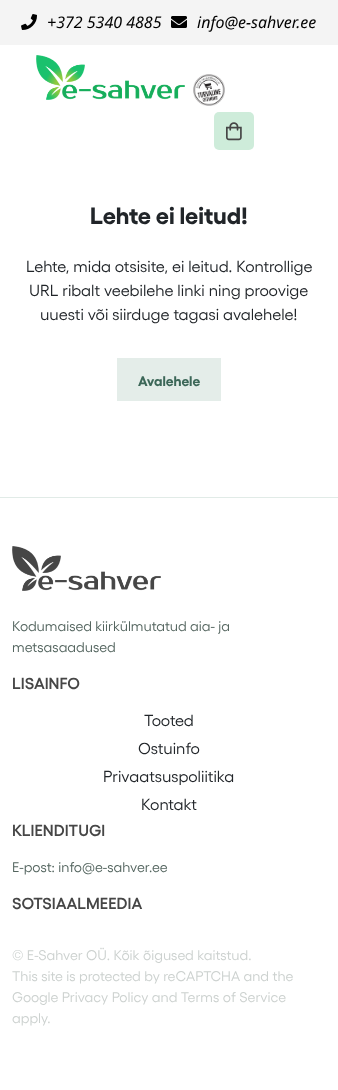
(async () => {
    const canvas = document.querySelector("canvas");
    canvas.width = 338;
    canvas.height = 1090;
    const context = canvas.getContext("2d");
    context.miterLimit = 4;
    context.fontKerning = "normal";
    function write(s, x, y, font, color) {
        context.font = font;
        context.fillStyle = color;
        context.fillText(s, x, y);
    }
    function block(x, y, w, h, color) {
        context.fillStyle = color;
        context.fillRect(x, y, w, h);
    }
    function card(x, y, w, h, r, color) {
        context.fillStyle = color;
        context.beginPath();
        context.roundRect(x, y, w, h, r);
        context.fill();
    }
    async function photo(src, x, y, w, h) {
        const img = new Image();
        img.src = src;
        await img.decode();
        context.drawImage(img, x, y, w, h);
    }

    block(0, 0, 338, 1090, "rgb(255, 255, 255)");
    block(0, 0, 338, 45, "rgb(244, 244, 244)");
    await photo("media/1.png", 21, 14, 16, 16);
    write("+372 5340 4885", 47, 28, "italic 16px Noto Sans", "rgb(0, 0, 0)");
    await photo("media/2.png", 171, 16, 16, 12);
    write("info@e-sahver.ee", 197, 28, "italic 16px Noto Sans", "rgb(0, 0, 0)");
    await photo("media/3.png", 36, 55, 149, 45);
    await photo("media/4.png", 193, 74, 32, 32);
    card(214, 112, 40, 38, 5, "rgb(206, 236, 218)");
    await photo("media/5.png", 226, 122, 16, 19);
    write("Lehte ei leitud!", 90, 224, "bold 23.75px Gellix", "rgb(33, 37, 41)");
    write("Lehte, mida otsisite, ei leitud. Kontrollige", 26, 272, "16px Gellix", "rgb(33, 37, 41)");
    write("URL ribalt veebilehe linki ning proovige", 29, 296, "16px Gellix", "rgb(33, 37, 41)");
    write("uuesti või siirduge tagasi avalehele!", 40, 320, "16px Gellix", "rgb(33, 37, 41)");
    block(117, 358, 104, 43, "rgb(228, 237, 233)");
    write("Avalehele", 138, 386, "bold 14px Gellix", "rgb(60, 103, 88)");
    block(0, 497, 338, 1, "rgb(225, 235, 231)");
    await photo("media/6.png", 12, 546, 149, 45);
    write("Kodumaised kiirkülmutatud aia- ja", 12, 631, "14px Gellix", "rgb(84, 101, 95)");
    write("metsasaadused", 12, 652, "14px Gellix", "rgb(84, 101, 95)");
    write("LISAINFO", 12, 689, "600 16px Gellix", "rgb(70, 70, 70)");
    write("Tooted", 144, 726, "16px Gellix", "rgb(33, 37, 41)");
    write("Ostuinfo", 138, 754, "16px Gellix", "rgb(33, 37, 41)");
    write("Privaatsuspoliitika", 103, 782, "16px Gellix", "rgb(33, 37, 41)");
    write("Kontakt", 141, 810, "16px Gellix", "rgb(33, 37, 41)");
    write("KLIENDITUGI", 12, 836, "600 16px Gellix", "rgb(70, 70, 70)");
    write("E-post: info@e-sahver.ee", 12, 872, "14px Gellix", "rgb(84, 101, 95)");
    write("SOTSIAALMEEDIA", 12, 909, "600 16px Gellix", "rgb(70, 70, 70)");
    write("© E-Sahver OÜ. Kõik õigused kaitstud.", 12, 960, "14px Gellix", "rgb(204, 209, 207)");
    write("This site is protected by reCAPTCHA and the", 12, 981, "14px Gellix", "rgb(204, 209, 207)");
    write("Google Privacy Policy and Terms of Service", 12, 1002, "14px Gellix", "rgb(204, 209, 207)");
    write("apply.", 12, 1023, "14px Gellix", "rgb(204, 209, 207)");
})();
